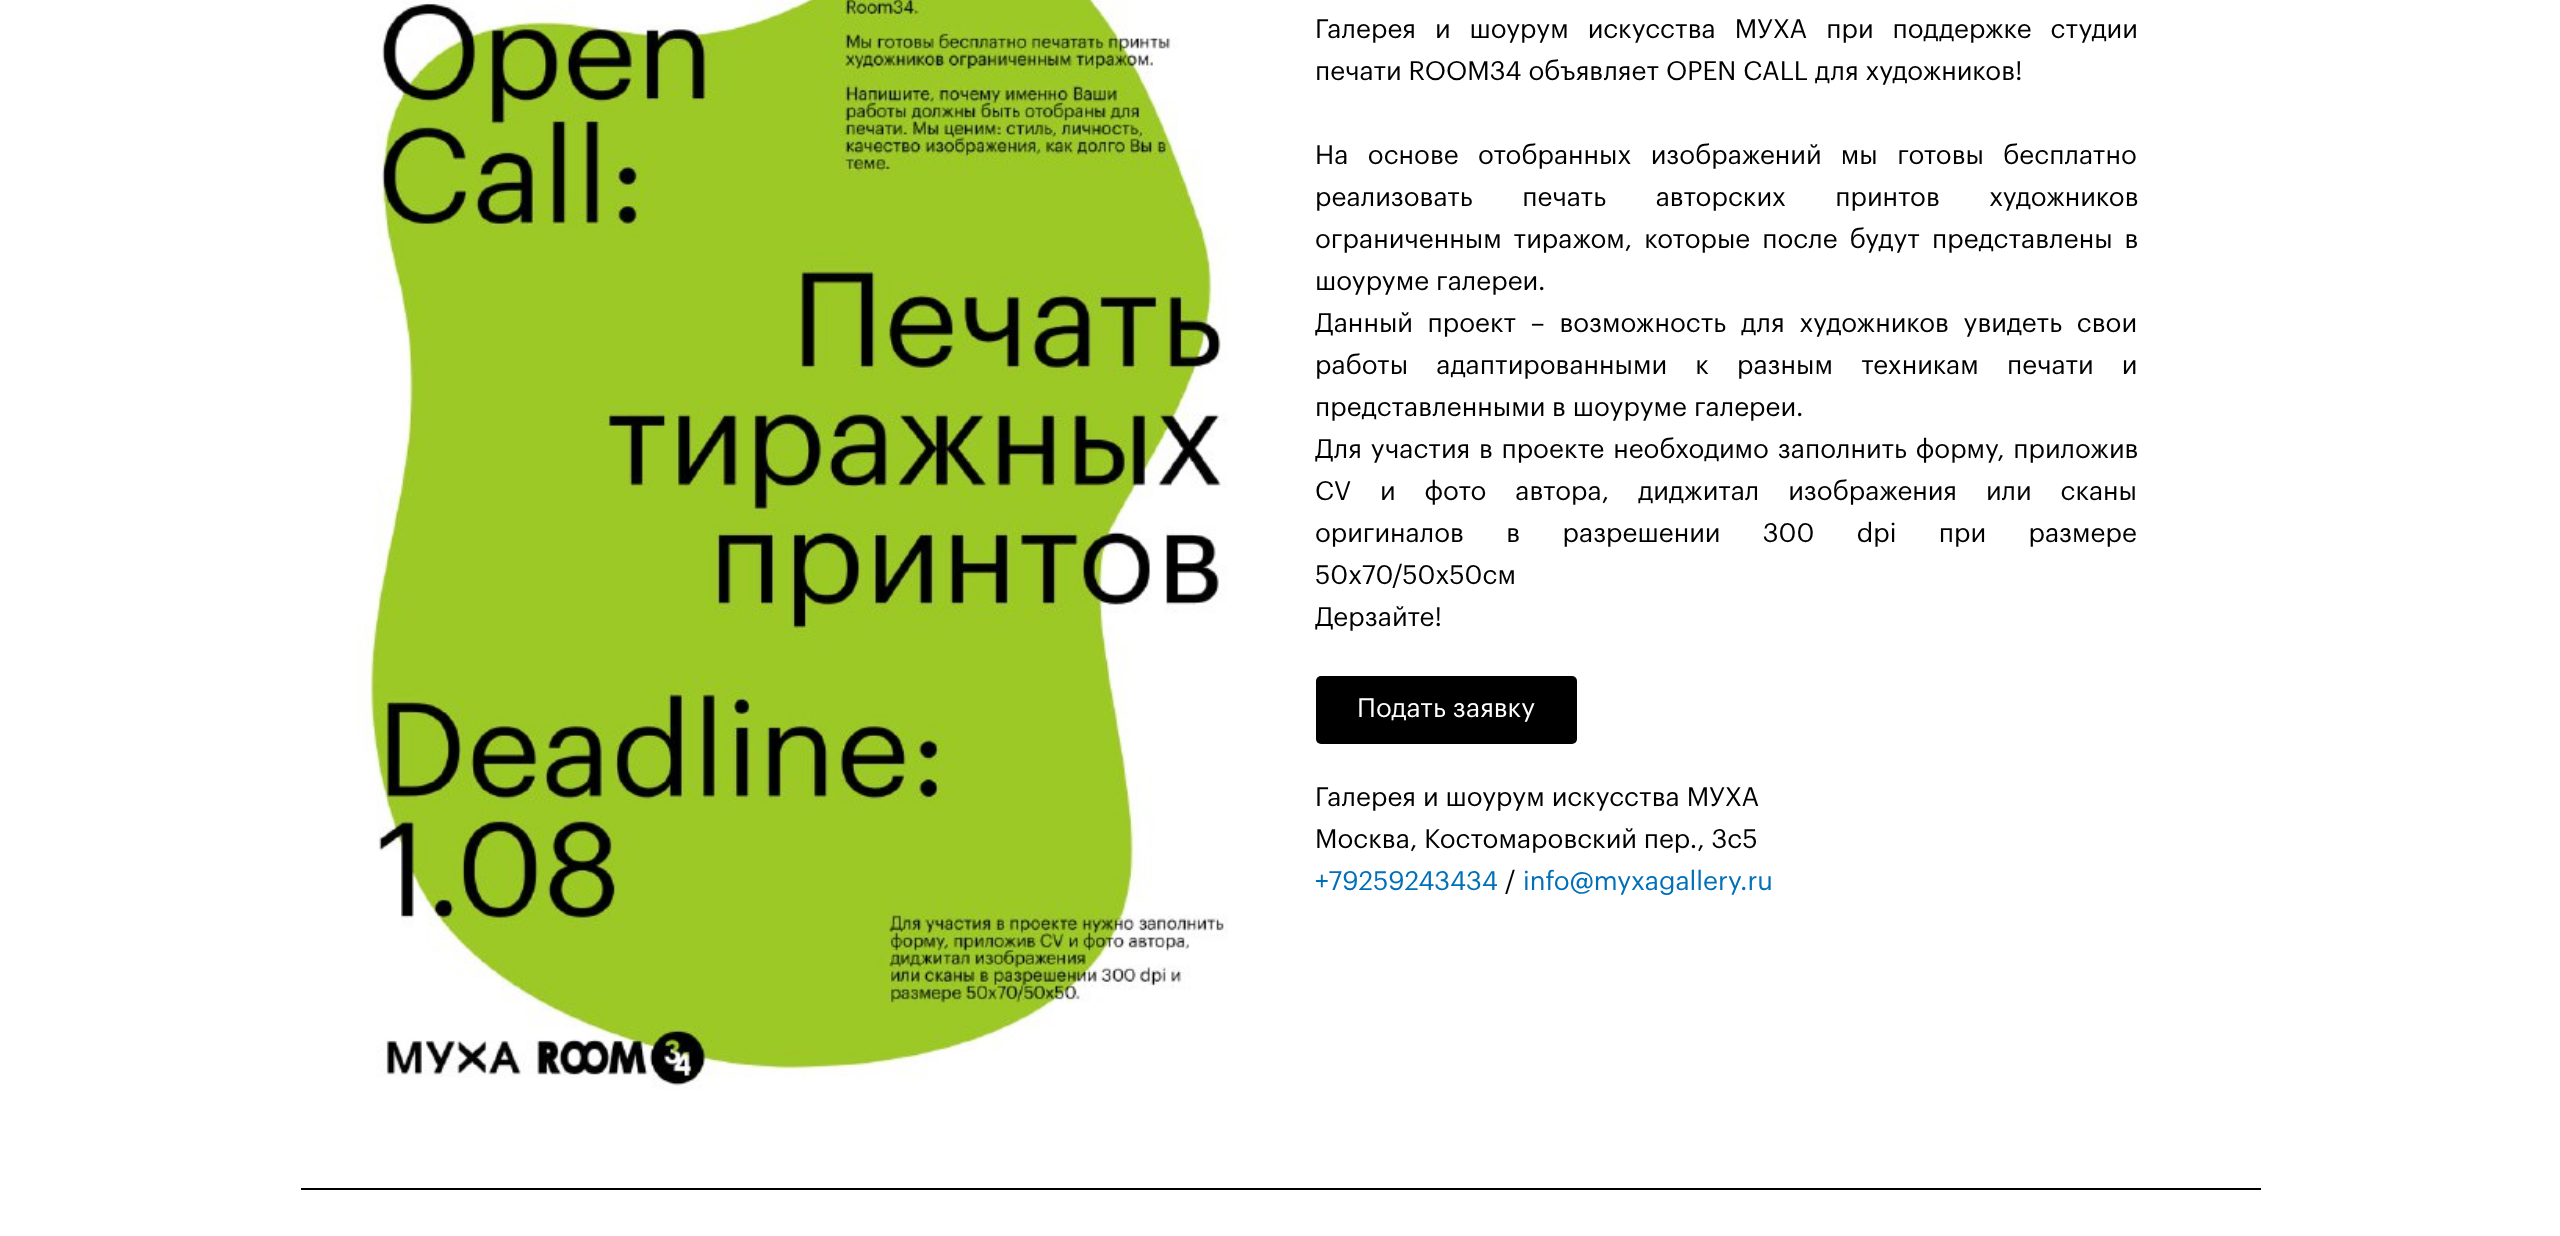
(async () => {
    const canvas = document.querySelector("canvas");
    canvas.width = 2560;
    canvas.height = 1236;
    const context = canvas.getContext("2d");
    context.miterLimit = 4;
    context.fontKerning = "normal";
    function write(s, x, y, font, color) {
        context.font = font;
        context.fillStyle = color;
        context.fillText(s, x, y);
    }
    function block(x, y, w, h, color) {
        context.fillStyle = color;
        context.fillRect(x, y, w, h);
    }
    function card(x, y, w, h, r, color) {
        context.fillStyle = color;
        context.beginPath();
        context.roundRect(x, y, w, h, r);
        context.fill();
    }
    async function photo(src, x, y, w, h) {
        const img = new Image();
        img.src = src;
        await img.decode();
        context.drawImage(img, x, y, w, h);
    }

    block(0, 0, 2560, 1236, "rgb(255, 255, 255)");
    await photo("media/1.png", 355, 0, 873, 1090);
    context.wordSpacing = "12px";
    write("Галерея и шоурум искусства МУХА при поддержке студии", 1315, 38, "26.25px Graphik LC", "rgb(0, 0, 0)");
    context.wordSpacing = "0px";
    write("печати ROOM34 объявляет OPEN CALL для художников!", 1315, 80, "26.25px Graphik LC", "rgb(0, 0, 0)");
    context.wordSpacing = "12.5px";
    write("На основе отобранных изображений мы готовы бесплатно", 1315, 164, "26.25px Graphik LC", "rgb(0, 0, 0)");
    context.wordSpacing = "42.5px";
    write("реализовать печать авторских принтов художников", 1315, 206, "26.25px Graphik LC", "rgb(0, 0, 0)");
    context.wordSpacing = "5px";
    write("ограниченным тиражом, которые после будут представлены в", 1315, 248, "26.25px Graphik LC", "rgb(0, 0, 0)");
    context.wordSpacing = "0px";
    write("шоуруме галереи.", 1315, 290, "26.25px Graphik LC", "rgb(0, 0, 0)");
    context.wordSpacing = "7.75px";
    write("Данный проект – возможность для художников увидеть свои", 1315, 332, "26.25px Graphik LC", "rgb(0, 0, 0)");
    context.wordSpacing = "21.25px";
    write("работы адаптированными к разным техникам печати и", 1315, 374, "26.25px Graphik LC", "rgb(0, 0, 0)");
    context.wordSpacing = "0px";
    write("представленными в шоуруме галереи.", 1315, 416, "26.25px Graphik LC", "rgb(0, 0, 0)");
    context.wordSpacing = "1.75px";
    write("Для участия в проекте необходимо заполнить форму, приложив", 1315, 458, "26.25px Graphik LC", "rgb(0, 0, 0)");
    context.wordSpacing = "22px";
    write("CV и фото автора, диджитал изображения или сканы", 1315, 500, "26.25px Graphik LC", "rgb(0, 0, 0)");
    context.wordSpacing = "35.5px";
    write("оригиналов в разрешении 300 dpi при размере", 1315, 542, "26.25px Graphik LC", "rgb(0, 0, 0)");
    context.wordSpacing = "0px";
    write("50х70/50х50см", 1315, 584, "26.25px Graphik LC", "rgb(0, 0, 0)");
    write("Дерзайте!", 1315, 626, "26.25px Graphik LC", "rgb(0, 0, 0)");
    card(1316, 676, 261, 68, 5, "rgb(0, 0, 0)");
    write("Подать заявку", 1357, 717, "26.25px Graphik LC", "rgb(255, 255, 255)");
    write("Галерея и шоурум искусства МУХА", 1315, 806, "26.25px Graphik LC", "rgb(0, 0, 0)");
    write("Москва, Костомаровский пер., 3с5", 1315, 848, "26.25px Graphik LC", "rgb(0, 0, 0)");
    write("+79259243434", 1315, 890, "26.25px Graphik LC", "rgb(1, 112, 185)");
    write("/", 1505, 890, "26.25px Graphik LC", "rgb(0, 0, 0)");
    write("info@myxagallery.ru", 1523, 890, "26.25px Graphik LC", "rgb(1, 112, 185)");
    block(301, 1188, 1960, 2, "rgb(0, 0, 0)");
})();
